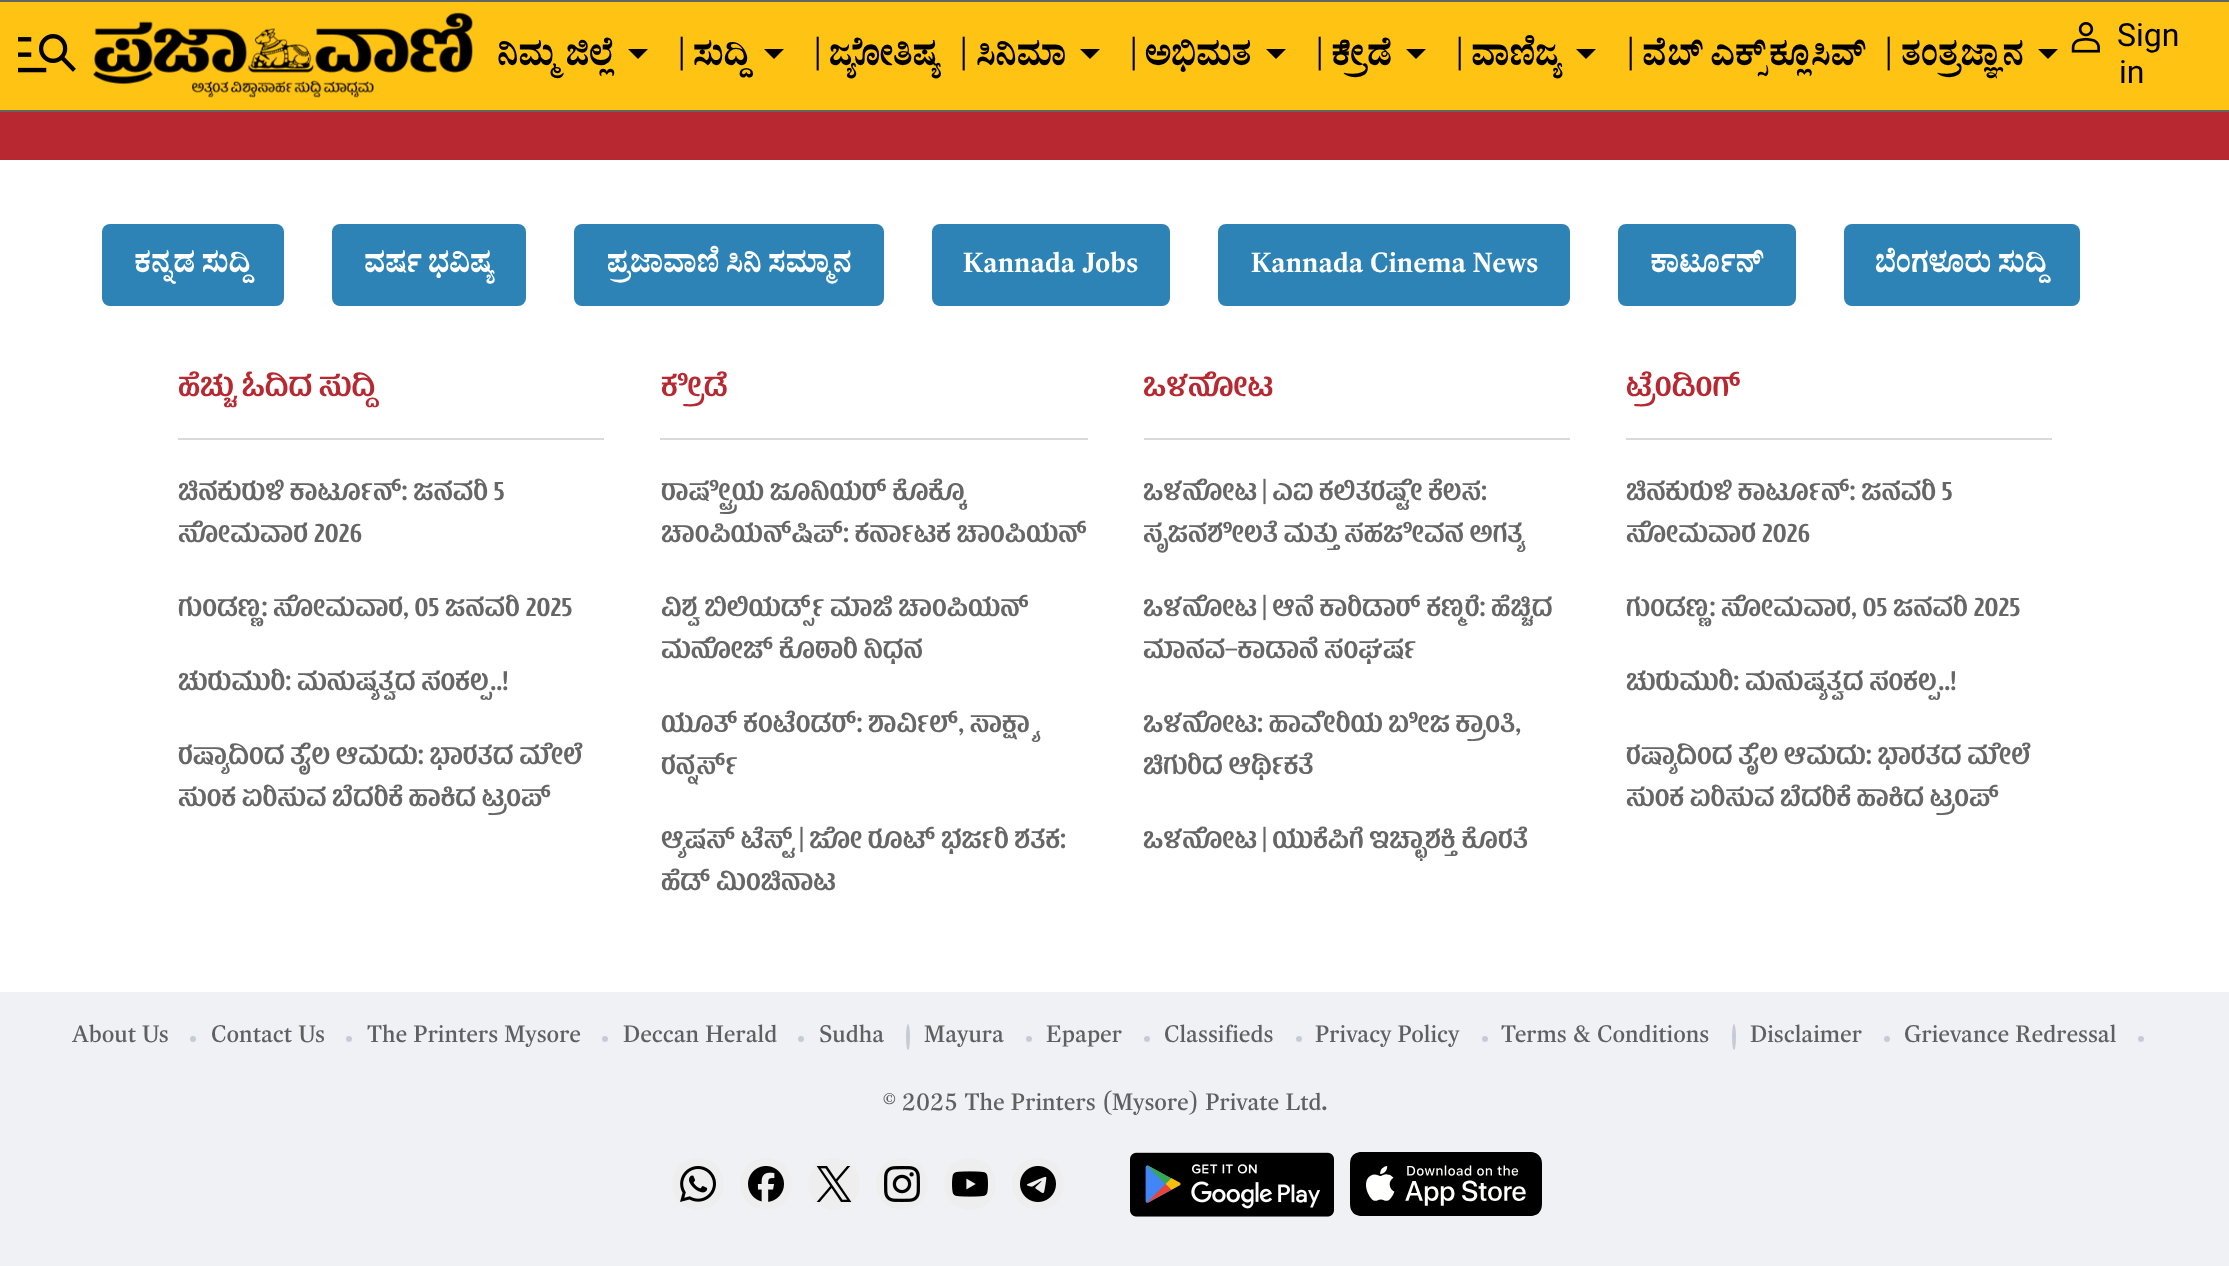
(async () => {
    const canvas = document.querySelector("canvas");
    canvas.width = 2229;
    canvas.height = 1266;
    const context = canvas.getContext("2d");
    context.miterLimit = 4;
    context.fontKerning = "normal";
    function write(s, x, y, font, color) {
        context.font = font;
        context.fillStyle = color;
        context.fillText(s, x, y);
    }
    function block(x, y, w, h, color) {
        context.fillStyle = color;
        context.fillRect(x, y, w, h);
    }
    function card(x, y, w, h, r, color) {
        context.fillStyle = color;
        context.beginPath();
        context.roundRect(x, y, w, h, r);
        context.fill();
    }
    async function photo(src, x, y, w, h) {
        const img = new Image();
        img.src = src;
        await img.decode();
        context.drawImage(img, x, y, w, h);
    }

    block(0, 0, 2229, 1266, "rgb(255, 255, 255)");
    block(0, 2, 2229, 108, "rgb(255, 195, 20)");
    block(0, 0, 2229, 2, "rgb(100, 100, 100)");
    block(0, 110, 2229, 2, "rgb(100, 100, 100)");
    await photo("media/1.png", 18, 34, 58, 39);
    await photo("media/2.png", 93, 12, 380, 86);
    write("ನಿಮ್ಮ ಜಿಲ್ಲೆ", 497, 65, "600 32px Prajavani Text", "rgb(0, 0, 0)");
    context.beginPath();
    context.moveTo(638, 59);
    context.lineTo(628, 49);
    context.lineTo(648, 49);
    context.closePath();
    context.fill();
    write("|", 676, 62, "600 32px Prajavani Text", "rgb(0, 0, 0)");
    write("ಸುದ್ದಿ", 693, 65, "600 32px Prajavani Text", "rgb(0, 0, 0)");
    context.beginPath();
    context.moveTo(774, 59);
    context.lineTo(764, 49);
    context.lineTo(784, 49);
    context.closePath();
    context.fill();
    write("|", 812, 62, "600 32px Prajavani Text", "rgb(0, 0, 0)");
    write("ಜ್ಯೋತಿಷ್ಯ", 829, 65, "600 32px Prajavani Text", "rgb(0, 0, 0)");
    write("|", 958, 62, "600 32px Prajavani Text", "rgb(0, 0, 0)");
    write("ಸಿನಿಮಾ", 976, 65, "600 32px Prajavani Text", "rgb(0, 0, 0)");
    context.beginPath();
    context.moveTo(1090, 59);
    context.lineTo(1080, 49);
    context.lineTo(1100, 49);
    context.closePath();
    context.fill();
    write("|", 1128, 62, "600 32px Prajavani Text", "rgb(0, 0, 0)");
    write("ಅಭಿಮತ", 1145, 65, "600 32px Prajavani Text", "rgb(0, 0, 0)");
    context.beginPath();
    context.moveTo(1276, 59);
    context.lineTo(1266, 49);
    context.lineTo(1286, 49);
    context.closePath();
    context.fill();
    write("|", 1314, 62, "600 32px Prajavani Text", "rgb(0, 0, 0)");
    write("ಕ್ರೀಡೆ", 1331, 65, "600 32px Prajavani Text", "rgb(0, 0, 0)");
    context.beginPath();
    context.moveTo(1416, 59);
    context.lineTo(1406, 49);
    context.lineTo(1426, 49);
    context.closePath();
    context.fill();
    write("|", 1454, 62, "600 32px Prajavani Text", "rgb(0, 0, 0)");
    write("ವಾಣಿಜ್ಯ", 1471, 65, "600 32px Prajavani Text", "rgb(0, 0, 0)");
    context.beginPath();
    context.moveTo(1586, 59);
    context.lineTo(1576, 49);
    context.lineTo(1596, 49);
    context.closePath();
    context.fill();
    write("|", 1625, 62, "600 32px Prajavani Text", "rgb(0, 0, 0)");
    write("ವೆಬ್ ಎಕ್ಸ್‌ಕ್ಲೂಸಿವ್", 1642, 65, "600 32px Prajavani Text", "rgb(0, 0, 0)");
    write("|", 1883, 62, "600 32px Prajavani Text", "rgb(0, 0, 0)");
    write("ತಂತ್ರಜ್ಞಾನ", 1901, 65, "600 32px Prajavani Text", "rgb(0, 0, 0)");
    context.beginPath();
    context.moveTo(2048, 59);
    context.lineTo(2038, 49);
    context.lineTo(2058, 49);
    context.closePath();
    context.fill();
    await photo("media/3.png", 2071, 22, 29, 31);
    write("Sign", 2117, 46, "32px Roboto", "rgb(0, 0, 0)");
    write("in", 2119, 83, "32px Roboto", "rgb(0, 0, 0)");
    block(0, 112, 2229, 48, "rgb(184, 40, 49)");
    card(102, 224, 182, 82, 8, "rgb(45, 131, 182)");
    write("ಕನ್ನಡ ಸುದ್ದಿ", 134, 272, "600 28px Prajavani Text", "rgb(255, 255, 255)");
    card(332, 224, 194, 82, 8, "rgb(45, 131, 182)");
    write("ವರ್ಷ ಭವಿಷ್ಯ", 364, 272, "600 28px Prajavani Text", "rgb(255, 255, 255)");
    card(574, 224, 310, 82, 8, "rgb(45, 131, 182)");
    write("ಪ್ರಜಾವಾಣಿ ಸಿನಿ ಸಮ್ಮಾನ", 607, 272, "600 28px Prajavani Text", "rgb(255, 255, 255)");
    card(932, 224, 238, 82, 8, "rgb(45, 131, 182)");
    write("Kannada Jobs", 963, 272, "600 28px Prajavani Text", "rgb(255, 255, 255)");
    card(1218, 224, 352, 82, 8, "rgb(45, 131, 182)");
    write("Kannada Cinema News", 1251, 272, "600 28px Prajavani Text", "rgb(255, 255, 255)");
    card(1618, 224, 178, 82, 8, "rgb(45, 131, 182)");
    write("ಕಾರ್ಟೂನ್", 1650, 272, "600 28px Prajavani Text", "rgb(255, 255, 255)");
    card(1844, 224, 236, 82, 8, "rgb(45, 131, 182)");
    write("ಬೆಂಗಳೂರು ಸುದ್ದಿ", 1875, 272, "600 28px Prajavani Text", "rgb(255, 255, 255)");
    block(178, 438, 426, 2, "rgb(217, 217, 217)");
    write("ಹೆಚ್ಚು ಓದಿದ ಸುದ್ದಿ", 178, 396, "600 32px 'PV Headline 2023'", "rgb(184, 40, 49)");
    write("ಚಿನಕುರುಳಿ ಕಾರ್ಟೂನ್: ಜನವರಿ 5", 178, 500, "600 28px 'PV Headline 2023'", "rgb(102, 102, 102)");
    write("ಸೋಮವಾರ 2026", 178, 542, "600 28px 'PV Headline 2023'", "rgb(102, 102, 102)");
    write("ಗುಂಡಣ್ಣ: ಸೋಮವಾರ, 05 ಜನವರಿ 2025", 178, 616, "600 28px 'PV Headline 2023'", "rgb(102, 102, 102)");
    write("ಚುರುಮುರಿ: ಮನುಷ್ಯತ್ವದ ಸಂಕಲ್ಪ..!", 178, 690, "600 28px 'PV Headline 2023'", "rgb(102, 102, 102)");
    write("ರಷ್ಯಾದಿಂದ ತೈಲ ಆಮದು: ಭಾರತದ ಮೇಲೆ", 178, 764, "600 28px 'PV Headline 2023'", "rgb(102, 102, 102)");
    write("ಸುಂಕ ಏರಿಸುವ ಬೆದರಿಕೆ ಹಾಕಿದ ಟ್ರಂಪ್", 178, 806, "600 28px 'PV Headline 2023'", "rgb(102, 102, 102)");
    block(660, 438, 428, 2, "rgb(217, 217, 217)");
    write("ಕ್ರೀಡೆ", 661, 396, "600 32px 'PV Headline 2023'", "rgb(184, 40, 49)");
    write("ರಾಷ್ಟ್ರೀಯ ಜೂನಿಯರ್‌ ಕೊಕ್ಕೊ", 661, 500, "600 28px 'PV Headline 2023'", "rgb(102, 102, 102)");
    write("ಚಾಂಪಿಯನ್‌ಷಿಪ್‌: ಕರ್ನಾಟಕ ಚಾಂಪಿಯನ್‌", 661, 542, "600 28px 'PV Headline 2023'", "rgb(102, 102, 102)");
    write("ವಿಶ್ವ ಬಿಲಿಯರ್ಡ್ಸ್‌ ಮಾಜಿ ಚಾಂಪಿಯನ್‌", 661, 616, "600 28px 'PV Headline 2023'", "rgb(102, 102, 102)");
    write("ಮನೋಜ್‌ ಕೊಠಾರಿ ನಿಧನ", 661, 658, "600 28px 'PV Headline 2023'", "rgb(102, 102, 102)");
    write("ಯೂತ್‌ ಕಂಟೆಂಡರ್‌: ಶಾರ್ವಿಲ್‌, ಸಾಕ್ಷ್ಯಾ", 661, 732, "600 28px 'PV Headline 2023'", "rgb(102, 102, 102)");
    write("ರನ್ನರ್ಸ್‌", 661, 774, "600 28px 'PV Headline 2023'", "rgb(102, 102, 102)");
    context.save();
    context.beginPath();
    context.rect(660, 820, 428, 84);
    context.clip();
    write("ಆ್ಯಷಸ್‌ ಟೆಸ್ಟ್ | ಜೋ ರೂಟ್‌ ಭರ್ಜರಿ ಶತಕ:", 661, 848, "600 28px 'PV Headline 2023'", "rgb(102, 102, 102)");
    context.restore();
    write("ಹೆಡ್‌ ಮಿಂಚಿನಾಟ", 661, 890, "600 28px 'PV Headline 2023'", "rgb(102, 102, 102)");
    block(1144, 438, 426, 2, "rgb(217, 217, 217)");
    write("ಒಳನೋಟ", 1143, 396, "600 32px 'PV Headline 2023'", "rgb(184, 40, 49)");
    write("ಒಳನೋಟ | ಎಐ ಕಲಿತರಷ್ಟೇ ಕೆಲಸ:", 1143, 500, "600 28px 'PV Headline 2023'", "rgb(102, 102, 102)");
    context.save();
    context.beginPath();
    context.rect(1144, 472, 426, 84);
    context.clip();
    write("ಸೃಜನಶೀಲತೆ ಮತ್ತು ಸಹಜೀವನ ಅಗತ್ಯ", 1143, 542, "600 28px 'PV Headline 2023'", "rgb(102, 102, 102)");
    context.restore();
    write("ಒಳನೋಟ | ಆನೆ ಕಾರಿಡಾರ್‌ ಕಣ್ಮರೆ: ಹೆಚ್ಚಿದ", 1143, 616, "600 28px 'PV Headline 2023'", "rgb(102, 102, 102)");
    write("ಮಾನವ–ಕಾಡಾನೆ ಸಂಘರ್ಷ", 1143, 658, "600 28px 'PV Headline 2023'", "rgb(102, 102, 102)");
    write("ಒಳನೋಟ: ಹಾವೇರಿಯ ಬೀಜ ಕ್ರಾಂತಿ,", 1143, 732, "600 28px 'PV Headline 2023'", "rgb(102, 102, 102)");
    write("ಚಿಗುರಿದ ಆರ್ಥಿಕತೆ", 1143, 774, "600 28px 'PV Headline 2023'", "rgb(102, 102, 102)");
    write("ಒಳನೋಟ | ಯುಕೆಪಿಗೆ ಇಚ್ಛಾಶಕ್ತಿ ಕೊರತೆ", 1143, 848, "600 28px 'PV Headline 2023'", "rgb(102, 102, 102)");
    block(1626, 438, 426, 2, "rgb(217, 217, 217)");
    write("ಟ್ರೆಂಡಿಂಗ್", 1626, 396, "600 32px 'PV Headline 2023'", "rgb(184, 40, 49)");
    write("ಚಿನಕುರುಳಿ ಕಾರ್ಟೂನ್: ಜನವರಿ 5", 1626, 500, "600 28px 'PV Headline 2023'", "rgb(102, 102, 102)");
    write("ಸೋಮವಾರ 2026", 1626, 542, "600 28px 'PV Headline 2023'", "rgb(102, 102, 102)");
    write("ಗುಂಡಣ್ಣ: ಸೋಮವಾರ, 05 ಜನವರಿ 2025", 1626, 616, "600 28px 'PV Headline 2023'", "rgb(102, 102, 102)");
    write("ಚುರುಮುರಿ: ಮನುಷ್ಯತ್ವದ ಸಂಕಲ್ಪ..!", 1626, 690, "600 28px 'PV Headline 2023'", "rgb(102, 102, 102)");
    write("ರಷ್ಯಾದಿಂದ ತೈಲ ಆಮದು: ಭಾರತದ ಮೇಲೆ", 1626, 764, "600 28px 'PV Headline 2023'", "rgb(102, 102, 102)");
    write("ಸುಂಕ ಏರಿಸುವ ಬೆದರಿಕೆ ಹಾಕಿದ ಟ್ರಂಪ್", 1626, 806, "600 28px 'PV Headline 2023'", "rgb(102, 102, 102)");
    block(0, 992, 2229, 274, "rgb(240, 241, 245)");
    write("About Us", 72, 1042, "24px Prajavani Text", "rgb(96, 96, 98)");
    context.fillStyle = "rgb(198, 204, 213)";
    context.beginPath();
    context.arc(193, 1039, 3, 0, Math.PI * 2);
    context.fill();
    write("Contact Us", 211, 1042, "24px Prajavani Text", "rgb(96, 96, 98)");
    context.fillStyle = "rgb(198, 204, 213)";
    context.beginPath();
    context.arc(349, 1039, 3, 0, Math.PI * 2);
    context.fill();
    write("The Printers Mysore", 367, 1042, "24px Prajavani Text", "rgb(96, 96, 98)");
    context.fillStyle = "rgb(198, 204, 213)";
    context.beginPath();
    context.arc(605, 1039, 3, 0, Math.PI * 2);
    context.fill();
    write("Deccan Herald", 623, 1042, "24px Prajavani Text", "rgb(96, 96, 98)");
    context.fillStyle = "rgb(198, 204, 213)";
    context.beginPath();
    context.arc(801, 1039, 3, 0, Math.PI * 2);
    context.fill();
    write("Sudha", 819, 1042, "24px Prajavani Text", "rgb(96, 96, 98)");
    context.fillStyle = "rgb(198, 204, 213)";
    context.beginPath();
    context.ellipse(908, 1037, 2, 13, 0, 0, Math.PI * 2);
    context.fill();
    write("Mayura", 924, 1042, "24px Prajavani Text", "rgb(96, 96, 98)");
    context.fillStyle = "rgb(198, 204, 213)";
    context.beginPath();
    context.arc(1029, 1039, 3, 0, Math.PI * 2);
    context.fill();
    write("Epaper", 1046, 1042, "24px Prajavani Text", "rgb(96, 96, 98)");
    context.fillStyle = "rgb(198, 204, 213)";
    context.beginPath();
    context.arc(1147, 1039, 3, 0, Math.PI * 2);
    context.fill();
    write("Classifieds", 1164, 1042, "24px Prajavani Text", "rgb(96, 96, 98)");
    context.fillStyle = "rgb(198, 204, 213)";
    context.beginPath();
    context.arc(1299, 1039, 3, 0, Math.PI * 2);
    context.fill();
    write("Privacy Policy", 1315, 1042, "24px Prajavani Text", "rgb(96, 96, 98)");
    context.fillStyle = "rgb(198, 204, 213)";
    context.beginPath();
    context.arc(1485, 1039, 3, 0, Math.PI * 2);
    context.fill();
    write("Terms & Conditions", 1501, 1042, "24px Prajavani Text", "rgb(96, 96, 98)");
    context.fillStyle = "rgb(198, 204, 213)";
    context.beginPath();
    context.ellipse(1734, 1037, 2, 13, 0, 0, Math.PI * 2);
    context.fill();
    write("Disclaimer", 1750, 1042, "24px Prajavani Text", "rgb(96, 96, 98)");
    context.fillStyle = "rgb(198, 204, 213)";
    context.beginPath();
    context.arc(1887, 1039, 3, 0, Math.PI * 2);
    context.fill();
    write("Grievance Redressal", 1904, 1042, "24px Prajavani Text", "rgb(96, 96, 98)");
    context.fillStyle = "rgb(198, 204, 213)";
    context.beginPath();
    context.arc(2141, 1039, 3, 0, Math.PI * 2);
    context.fill();
    write("© 2025 The Printers (Mysore) Private Ltd.", 883, 1110, "24px Prajavani Text", "rgb(96, 96, 98)");
    context.fillStyle = "rgb(238, 238, 238)";
    context.beginPath();
    context.arc(698, 1184, 26, 0, Math.PI * 2);
    context.fill();
    await photo("media/4.png", 680, 1166, 36, 36);
    context.beginPath();
    context.arc(766, 1184, 26, 0, Math.PI * 2);
    context.fill();
    await photo("media/5.png", 748, 1166, 36, 36);
    context.beginPath();
    context.arc(834, 1184, 26, 0, Math.PI * 2);
    context.fill();
    await photo("media/6.png", 816, 1166, 36, 36);
    context.beginPath();
    context.arc(902, 1184, 26, 0, Math.PI * 2);
    context.fill();
    await photo("media/7.png", 884, 1166, 36, 36);
    context.beginPath();
    context.arc(970, 1184, 26, 0, Math.PI * 2);
    context.fill();
    await photo("media/8.png", 952, 1171, 36, 26);
    context.beginPath();
    context.arc(1038, 1184, 26, 0, Math.PI * 2);
    context.fill();
    await photo("media/9.png", 1020, 1166, 36, 36);
    await photo("media/10.png", 1130, 1152, 204, 65);
    await photo("media/11.png", 1350, 1152, 192, 64);
})();
